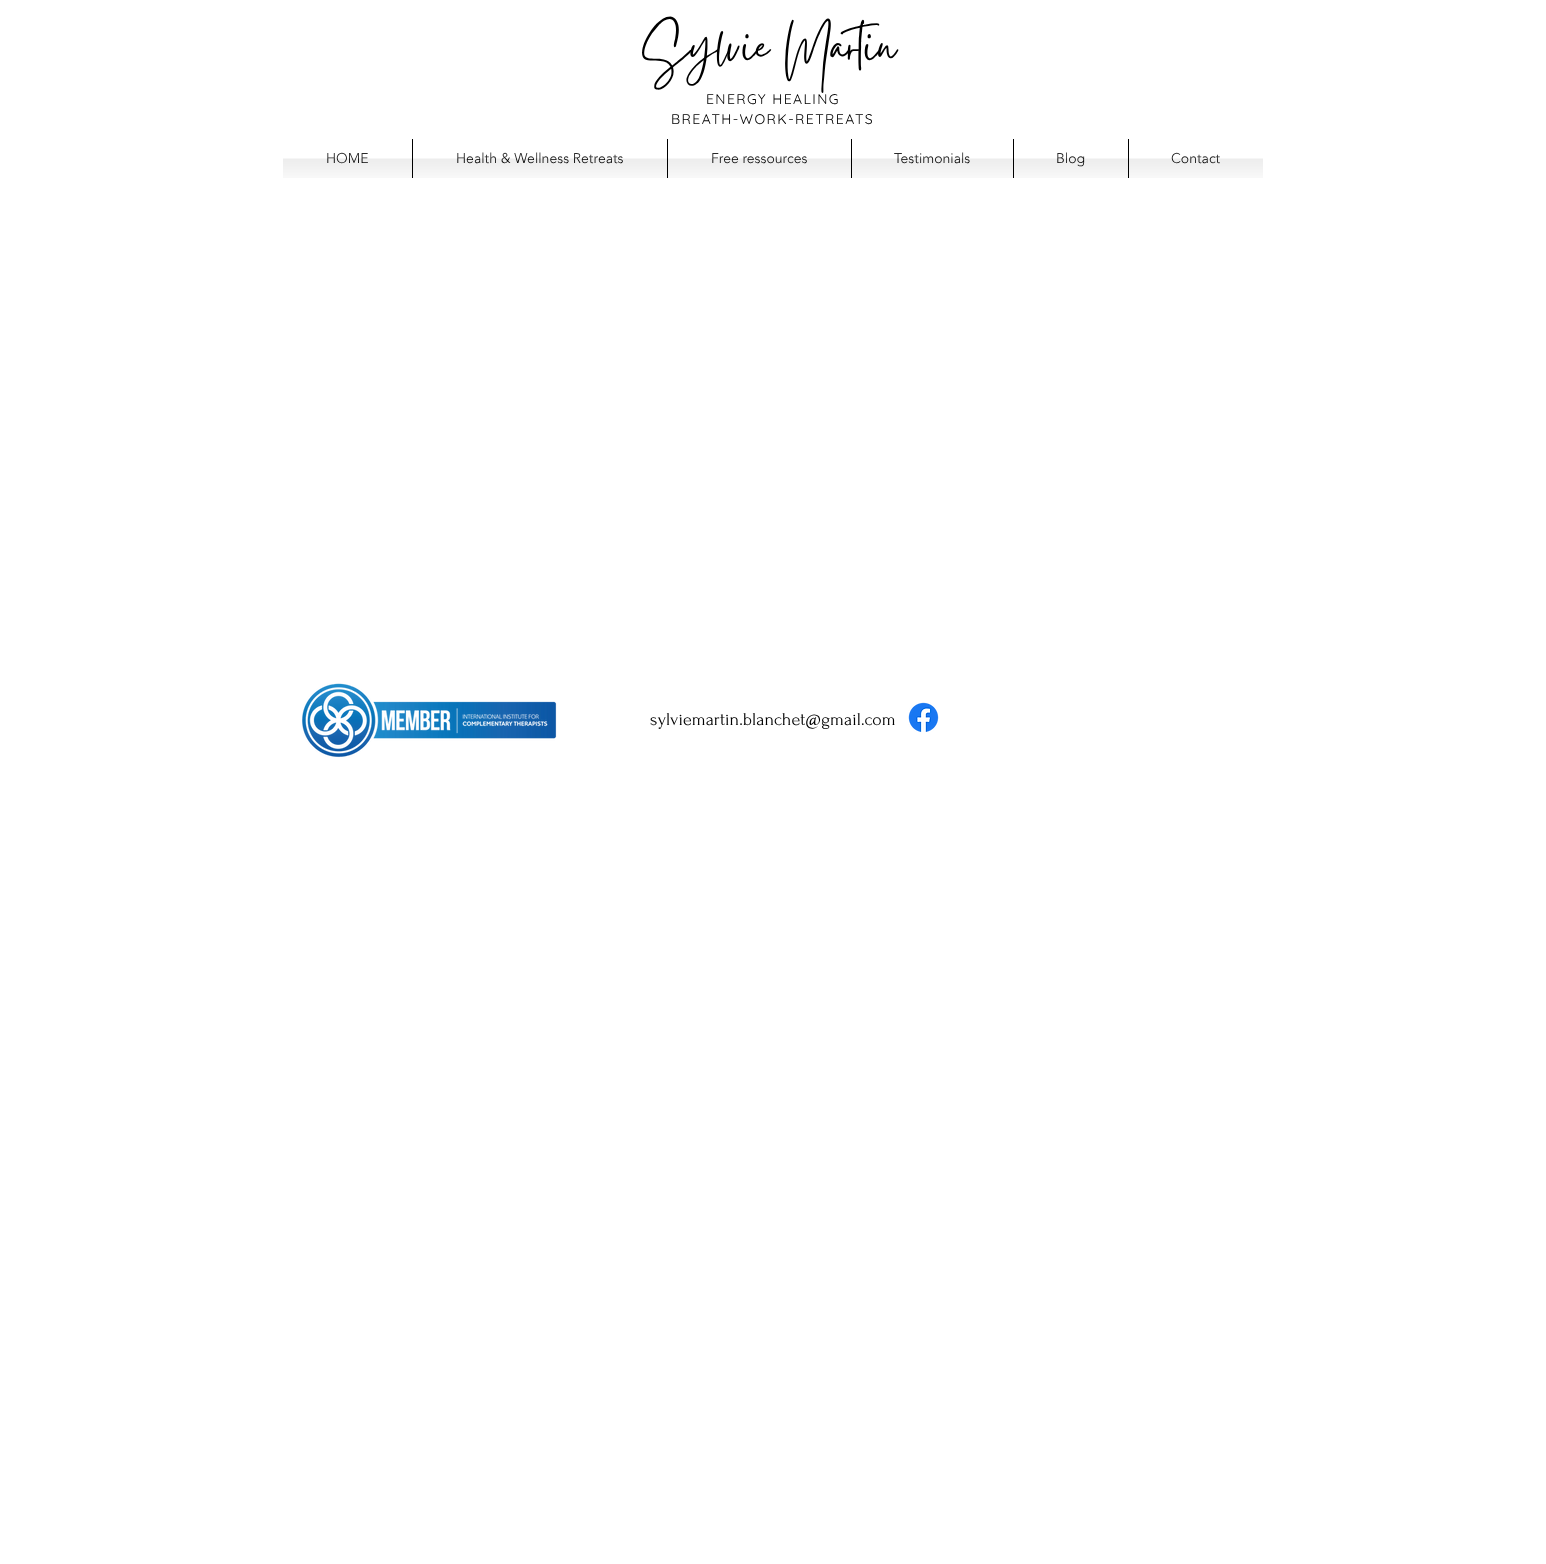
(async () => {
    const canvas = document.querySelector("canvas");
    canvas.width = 1546;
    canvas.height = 1564;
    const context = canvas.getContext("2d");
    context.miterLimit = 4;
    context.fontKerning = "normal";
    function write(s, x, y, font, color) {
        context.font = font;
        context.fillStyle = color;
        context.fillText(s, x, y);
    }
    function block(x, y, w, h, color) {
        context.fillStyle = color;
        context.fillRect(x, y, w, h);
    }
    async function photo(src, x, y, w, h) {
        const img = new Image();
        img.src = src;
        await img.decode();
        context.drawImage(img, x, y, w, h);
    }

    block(0, 0, 1546, 1564, "rgb(255, 255, 255)");
    write("Sylvie Martin", 642, 60, "60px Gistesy", "rgb(0, 0, 0)");
    context.letterSpacing = "1.4px";
    write("ENERGY HEALING", 706, 104, "14px Quicksand", "rgb(0, 0, 0)");
    write("BREATH-WORK-RETREATS", 671, 124, "14px Quicksand", "rgb(0, 0, 0)");
    context.letterSpacing = "0px";
    write("HOME", 326, 163, "300 14px 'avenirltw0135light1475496'", "rgb(0, 0, 0)");
    await photo("media/1.png", 283, 152, 129, 26);
    block(412, 139, 1, 39, "rgb(0, 0, 0)");
    write("Health & Wellness Retreats", 456, 163, "300 14px 'avenirltw0135light1475496'", "rgb(0, 0, 0)");
    await photo("media/2.png", 413, 152, 254, 26);
    block(667, 139, 1, 39, "rgb(0, 0, 0)");
    write("Free ressources", 711, 163, "300 14px 'avenirltw0135light1475496'", "rgb(0, 0, 0)");
    await photo("media/3.png", 668, 153, 183, 25);
    block(851, 139, 1, 39, "rgb(0, 0, 0)");
    write("Testimonials", 894, 163, "300 14px 'avenirltw0135light1475496'", "rgb(0, 0, 0)");
    await photo("media/4.png", 852, 152, 161, 26);
    block(1013, 139, 1, 39, "rgb(0, 0, 0)");
    write("Blog", 1056, 163, "300 14px 'avenirltw0135light1475496'", "rgb(0, 0, 0)");
    await photo("media/5.png", 1014, 152, 114, 26);
    block(1128, 139, 1, 39, "rgb(0, 0, 0)");
    write("Contact", 1171, 163, "300 14px 'avenirltw0135light1475496'", "rgb(0, 0, 0)");
    await photo("media/6.png", 1129, 152, 134, 26);
    await photo("media/7.png", 302, 683, 255, 75);
    write("sylviemartin.blanchet@gmail.com", 650, 725, "18px Forum", "rgb(0, 0, 0)");
    await photo("media/8.png", 908, 702, 31, 30);
})();
